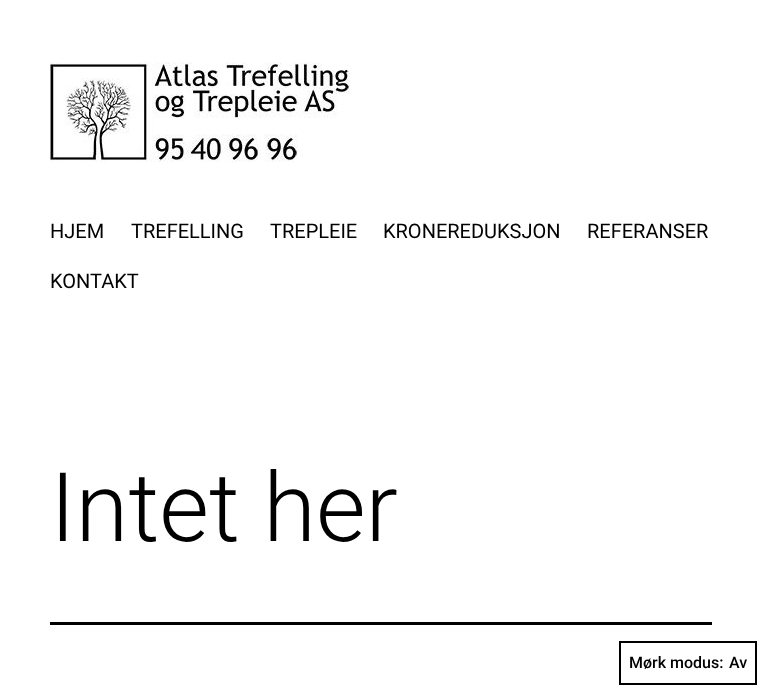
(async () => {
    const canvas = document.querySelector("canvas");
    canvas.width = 762;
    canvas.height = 690;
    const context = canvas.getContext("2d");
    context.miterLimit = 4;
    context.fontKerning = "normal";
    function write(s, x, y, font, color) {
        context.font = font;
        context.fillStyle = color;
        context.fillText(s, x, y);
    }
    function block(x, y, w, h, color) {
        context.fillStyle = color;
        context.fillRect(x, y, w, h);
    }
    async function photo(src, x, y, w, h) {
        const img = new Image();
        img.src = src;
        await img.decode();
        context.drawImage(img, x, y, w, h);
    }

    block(0, 0, 762, 690, "rgb(255, 255, 255)");
    await photo("media/1.png", 50, 62, 300, 100);
    write("HJEM", 50, 238, "20px Roboto", "rgb(0, 0, 0)");
    write("TREFELLING", 131, 238, "20px Roboto", "rgb(0, 0, 0)");
    write("TREPLEIE", 270, 238, "20px Roboto", "rgb(0, 0, 0)");
    write("KRONEREDUKSJON", 383, 238, "20px Roboto", "rgb(0, 0, 0)");
    write("REFERANSER", 587, 238, "20px Roboto", "rgb(0, 0, 0)");
    write("KONTAKT", 50, 288, "20px Roboto", "rgb(0, 0, 0)");
    block(50, 622, 662, 3, "rgb(0, 0, 0)");
    write("Intet her", 50, 541, "300 96px Roboto", "rgb(0, 0, 0)");
    context.strokeStyle = "rgb(0, 0, 0)";
    context.lineWidth = 2;
    context.strokeRect(620, 642, 136, 42);
    write("Mørk modus:", 629, 668, "500 16px Roboto", "rgb(0, 0, 0)");
    write("Av", 729, 668, "500 16px Roboto", "rgb(0, 0, 0)");
})();
